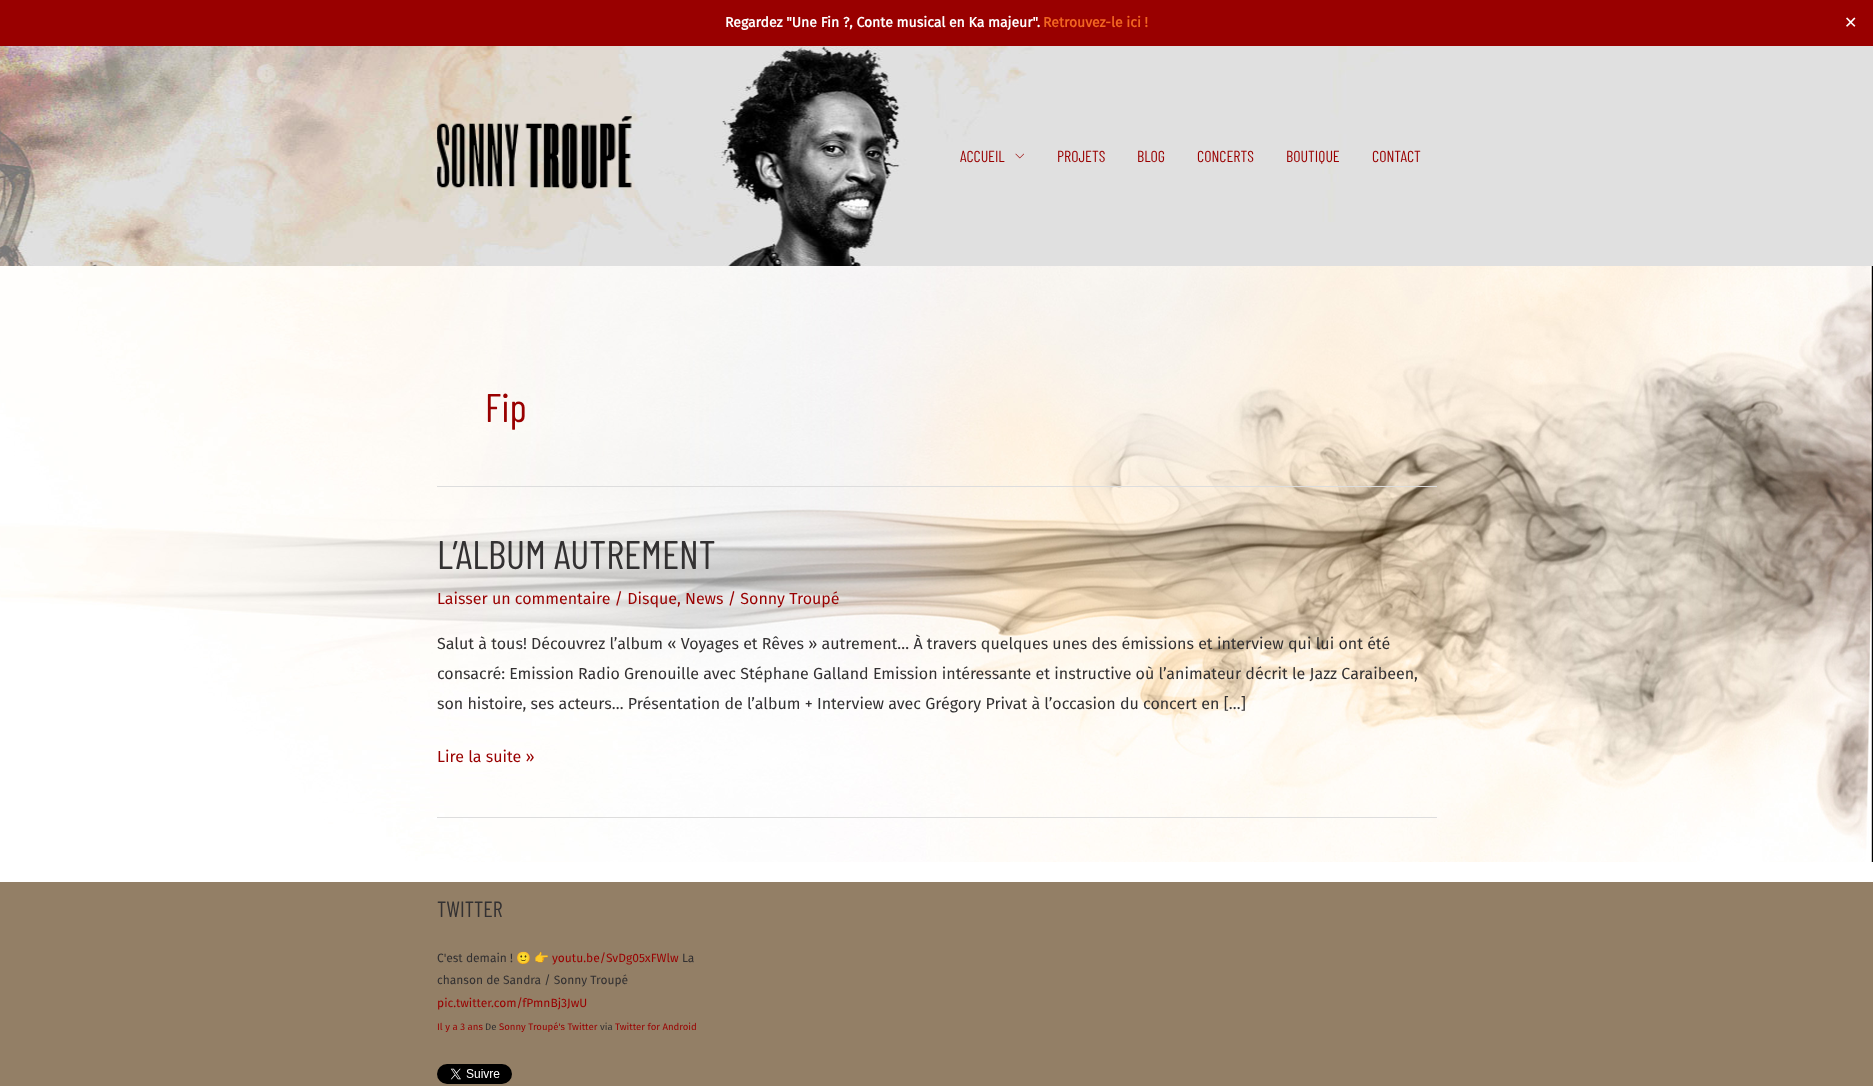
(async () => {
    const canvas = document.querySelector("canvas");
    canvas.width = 1873;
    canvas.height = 1086;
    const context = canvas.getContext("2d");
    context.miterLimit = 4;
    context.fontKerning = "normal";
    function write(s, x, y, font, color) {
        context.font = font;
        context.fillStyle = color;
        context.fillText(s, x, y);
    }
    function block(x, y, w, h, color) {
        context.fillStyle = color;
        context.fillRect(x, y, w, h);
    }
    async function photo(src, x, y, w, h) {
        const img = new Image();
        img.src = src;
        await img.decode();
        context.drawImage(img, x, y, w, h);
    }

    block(0, 0, 1873, 1086, "rgb(255, 255, 255)");
    await photo("media/1.png", 0, 266, 1873, 596);
    block(0, 0, 1873, 46, "rgb(153, 0, 0)");
    write("Regardez \"Une Fin ?, Conte musical en Ka majeur\".", 725, 27, "bold 14px Fira Sans", "rgb(255, 255, 255)");
    write("Retrouvez-le ici !", 1043, 27, "bold 14px Fira Sans", "rgb(241, 101, 33)");
    context.letterSpacing = "1px";
    write("✕", 1844, 28, "16px DejaVu Sans", "rgb(255, 255, 255)");
    await photo("media/2.png", 0, 46, 1873, 220);
    await photo("media/3.png", 437, 116, 195, 73);
    context.letterSpacing = "0px";
    write("ACCUEIL", 960, 162, "16px Barlow Condensed", "rgb(153, 0, 0)");
    await photo("media/4.png", 1015, 153, 9, 6);
    write("PROJETS", 1057, 162, "16px Barlow Condensed", "rgb(153, 0, 0)");
    write("BLOG", 1137, 162, "16px Barlow Condensed", "rgb(153, 0, 0)");
    write("CONCERTS", 1197, 162, "16px Barlow Condensed", "rgb(153, 0, 0)");
    write("BOUTIQUE", 1286, 162, "16px Barlow Condensed", "rgb(153, 0, 0)");
    write("CONTACT", 1372, 162, "16px Barlow Condensed", "rgb(153, 0, 0)");
    block(437, 486, 1000, 1, "rgb(221, 221, 221)");
    write("Fip", 485, 422, "40px Barlow Condensed", "rgb(153, 0, 0)");
    block(437, 817, 1000, 1, "rgb(221, 221, 221)");
    write("L’ALBUM AUTREMENT", 437, 569, "40px Barlow Condensed", "rgb(51, 49, 50)");
    write("Laisser un commentaire / Disque, News / Sonny Troupé", 437, 604, "16px Fira Sans", "rgb(153, 0, 0)");
    write("Salut à tous! Découvrez l’album « Voyages et Rêves » autrement… À travers quelques unes des émissions et interview qui lui ont été", 437, 649, "16px Fira Sans", "rgb(51, 49, 50)");
    write("consacré: Emission Radio Grenouille avec Stéphane Galland Emission intéressante et instructive où l’animateur décrit le Jazz Caraibeen,", 437, 679, "16px Fira Sans", "rgb(51, 49, 50)");
    write("son histoire, ses acteurs… Présentation de l’album + Interview avec Grégory Privat à l’occasion du concert en […]", 437, 709, "16px Fira Sans", "rgb(51, 49, 50)");
    write("Lire la suite »", 437, 762, "16px Fira Sans", "rgb(153, 0, 0)");
    block(0, 882, 1873, 204, "rgb(147, 127, 102)");
    write("TWITTER", 437, 917, "22px Barlow Condensed", "rgb(51, 49, 50)");
    write("C'est demain !", 437, 962, "12px Fira Sans", "rgb(51, 49, 50)");
    write("🙂", 516, 962, "12px Noto Color Emoji", "rgb(51, 49, 50)");
    write("👉", 534, 962, "12px Noto Color Emoji", "rgb(51, 49, 50)");
    write("youtu.be/SvDg05xFWlw", 552, 962, "12px Fira Sans", "rgb(153, 0, 0)");
    write("La", 682, 962, "12px Fira Sans", "rgb(51, 49, 50)");
    write("chanson de Sandra / Sonny Troupé", 437, 984, "12px Fira Sans", "rgb(51, 49, 50)");
    write("pic.twitter.com/fPmnBj3JwU", 437, 1007, "12px Fira Sans", "rgb(153, 0, 0)");
    write("Il y a 3 ans", 437, 1030, "9.6px Fira Sans", "rgb(153, 0, 0)");
    write("De", 485, 1030, "9.6px Fira Sans", "rgb(51, 49, 50)");
    write("Sonny Troupé's Twitter", 499, 1030, "9.6px Fira Sans", "rgb(153, 0, 0)");
    write("via", 600, 1030, "9.6px Fira Sans", "rgb(51, 49, 50)");
    write("Twitter for Android", 615, 1030, "9.6px Fira Sans", "rgb(153, 0, 0)");
    await photo("media/5.png", 437, 1064, 75, 20);
})();
